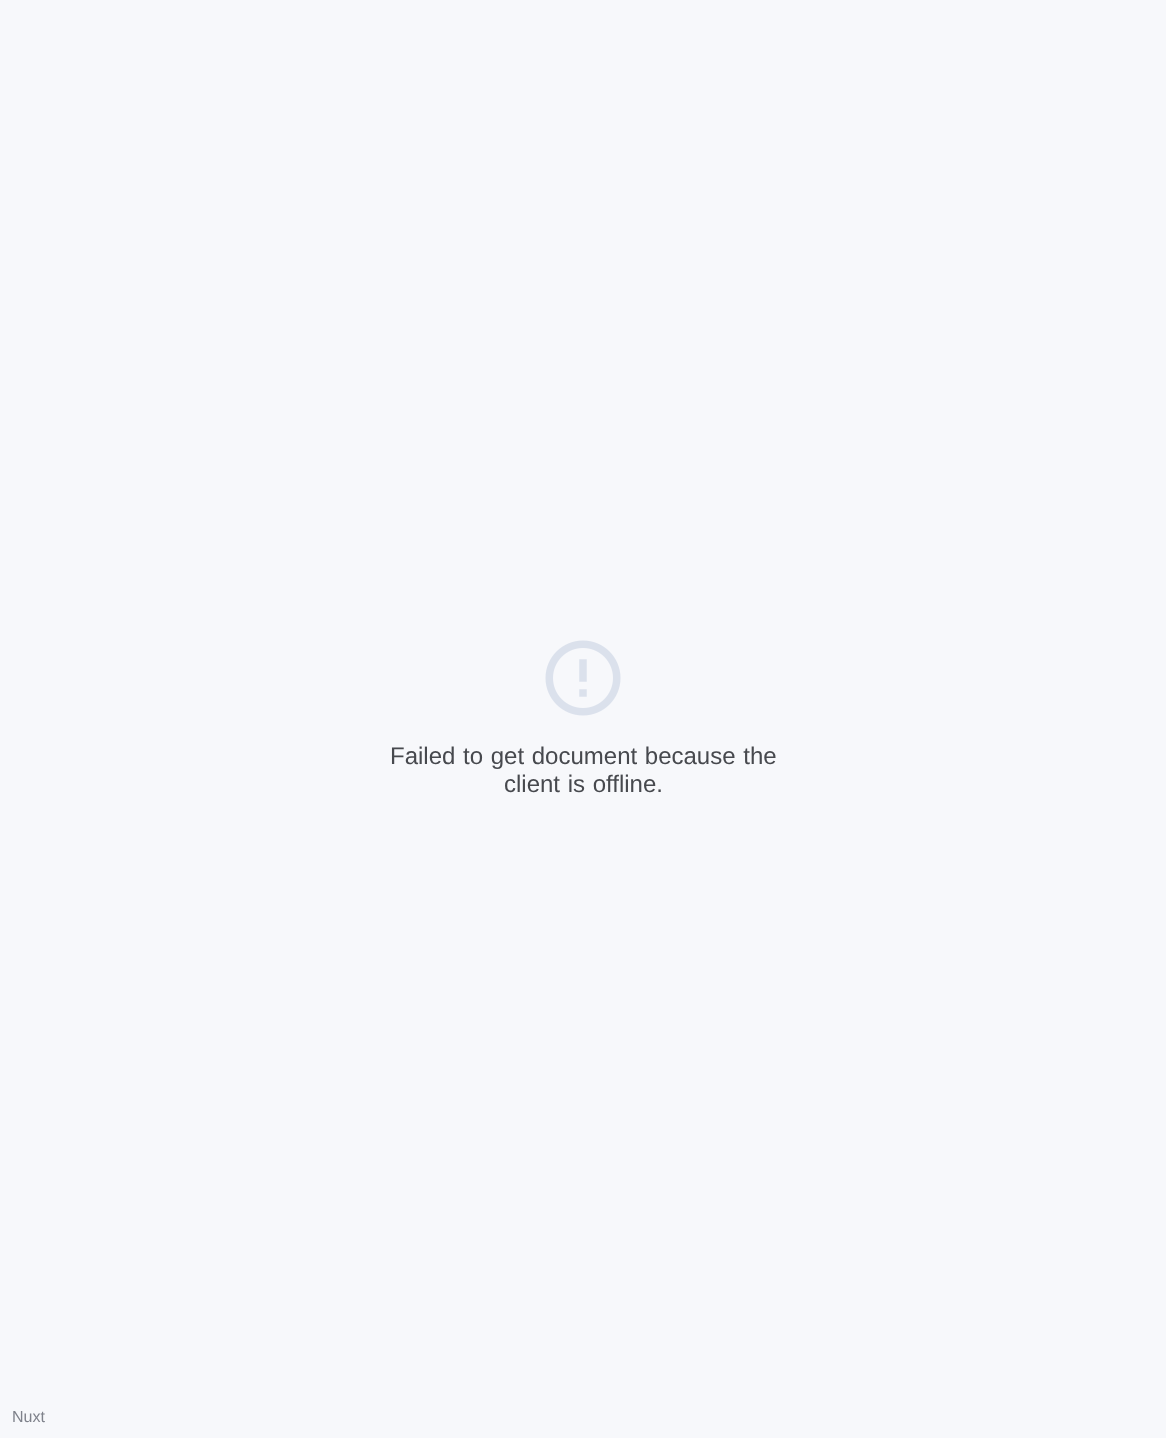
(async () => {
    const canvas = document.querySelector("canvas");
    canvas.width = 1166;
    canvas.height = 1438;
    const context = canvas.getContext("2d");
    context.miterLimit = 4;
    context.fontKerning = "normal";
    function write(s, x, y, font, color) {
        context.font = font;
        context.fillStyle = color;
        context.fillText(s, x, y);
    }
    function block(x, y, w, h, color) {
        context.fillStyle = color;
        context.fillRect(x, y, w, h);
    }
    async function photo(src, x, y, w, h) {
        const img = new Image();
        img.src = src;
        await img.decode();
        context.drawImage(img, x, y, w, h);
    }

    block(0, 0, 1166, 1438, "rgb(247, 248, 251)");
    await photo("media/1.png", 545, 640, 76, 76);
    context.wordSpacing = "1px";
    write("Failed to get document because the", 390, 764, "24px Liberation Sans", "rgb(71, 73, 78)");
    write("client is offline.", 504, 792, "24px Liberation Sans", "rgb(71, 73, 78)");
    context.wordSpacing = "0px";
    write("Nuxt", 12, 1422, "16px Liberation Sans", "rgb(127, 130, 139)");
})();
